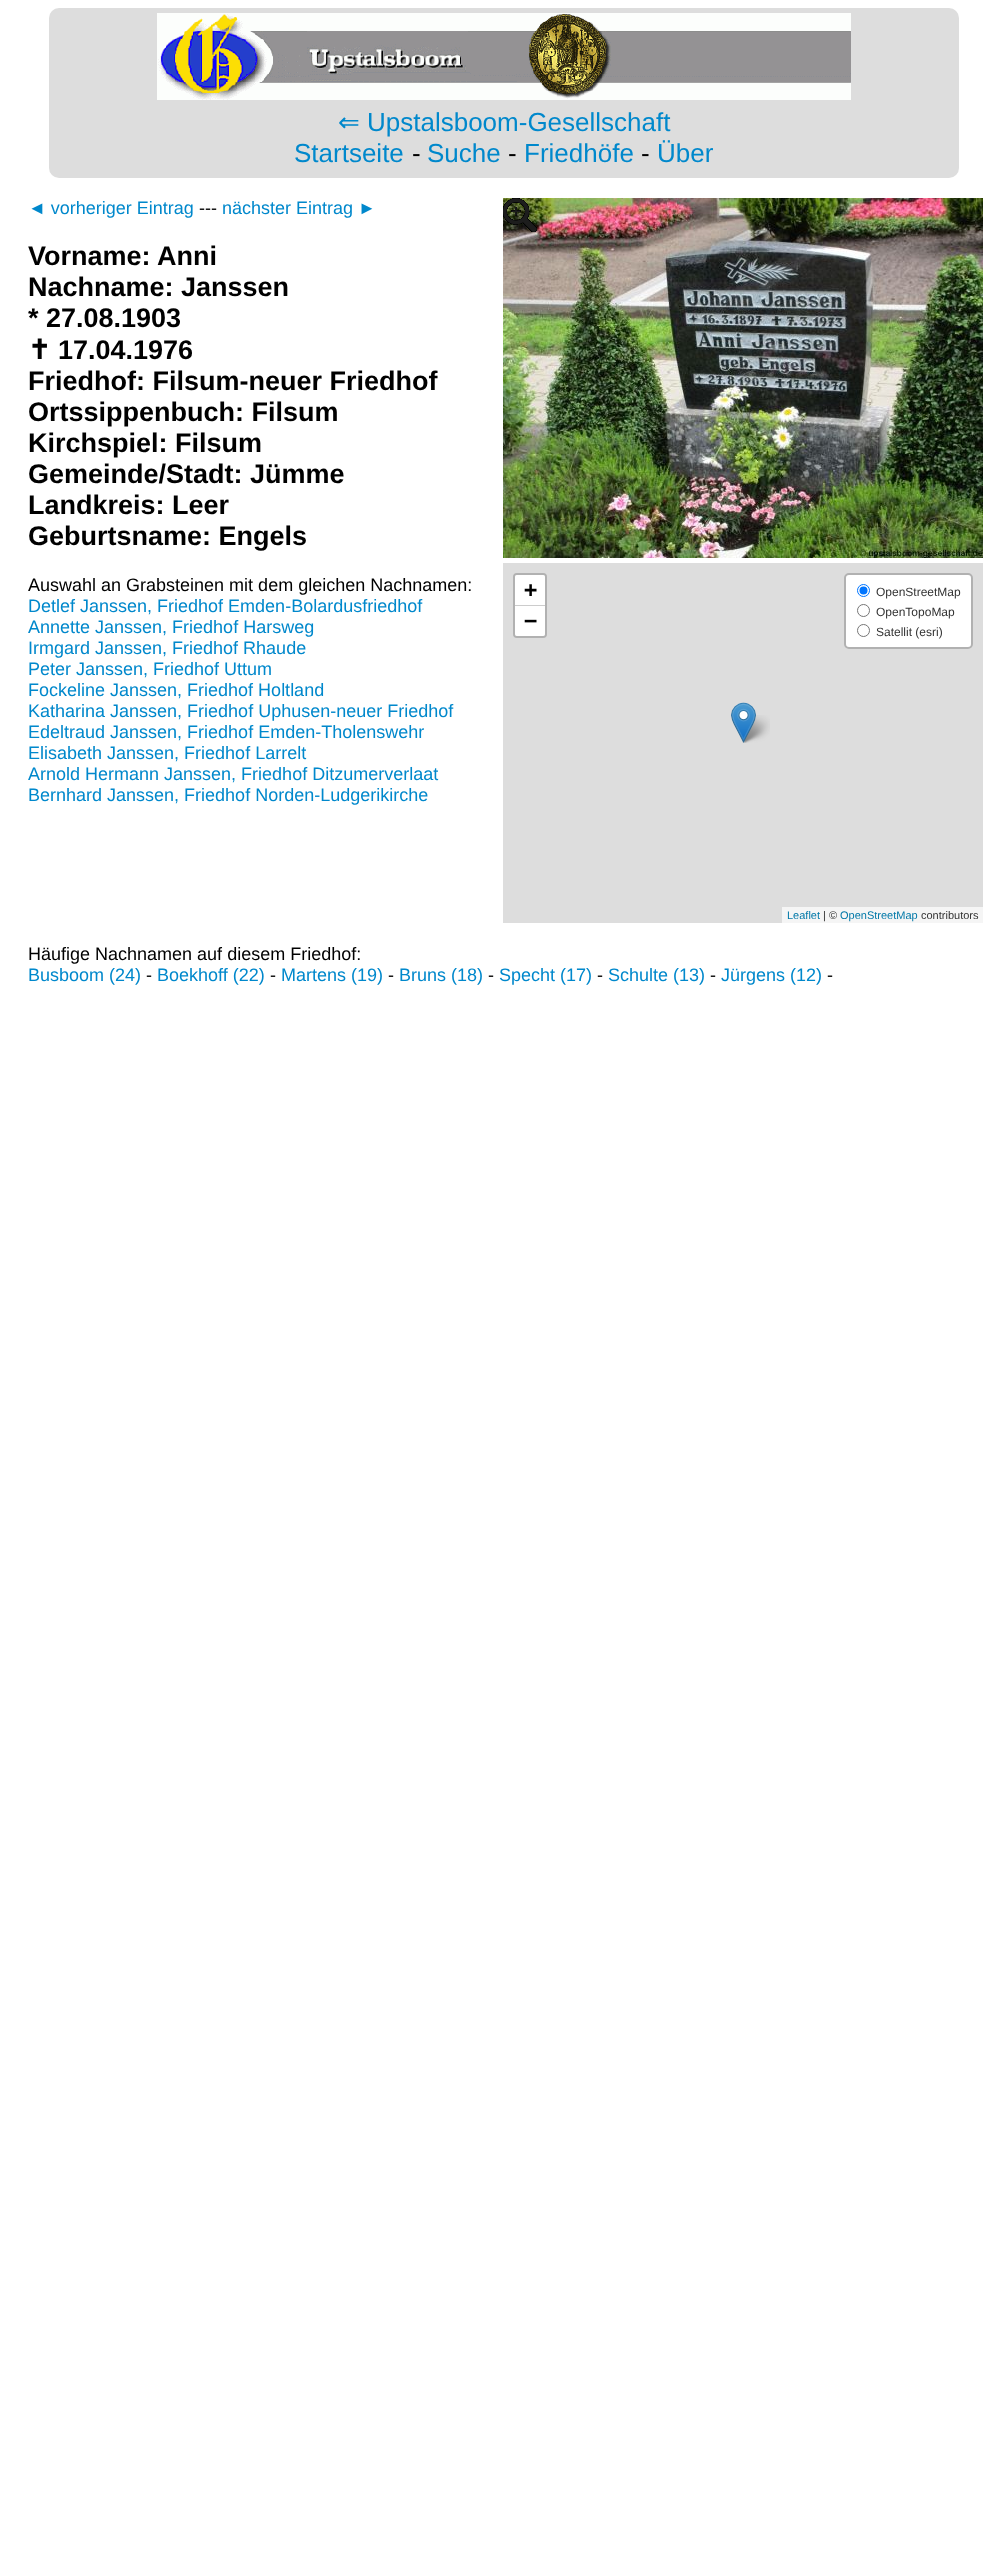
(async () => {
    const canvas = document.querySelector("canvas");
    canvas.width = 1008;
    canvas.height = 2560;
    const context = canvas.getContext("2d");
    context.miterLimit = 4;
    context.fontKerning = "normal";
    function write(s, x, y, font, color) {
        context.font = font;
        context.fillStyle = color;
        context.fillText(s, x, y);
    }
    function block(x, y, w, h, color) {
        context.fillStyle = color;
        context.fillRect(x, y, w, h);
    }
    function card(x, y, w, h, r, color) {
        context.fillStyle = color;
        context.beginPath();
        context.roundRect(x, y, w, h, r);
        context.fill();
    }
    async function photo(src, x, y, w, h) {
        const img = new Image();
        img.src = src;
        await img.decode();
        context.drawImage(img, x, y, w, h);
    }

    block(0, 0, 1008, 2560, "rgb(255, 255, 255)");
    card(49, 8, 910, 170, 10, "rgb(221, 221, 221)");
    await photo("media/1.png", 157, 13, 694, 87);
    write("⇐", 338, 131, "26px DejaVu Sans", "rgb(0, 136, 204)");
    write("Upstalsboom-Gesellschaft", 367, 131, "26px Liberation Sans", "rgb(0, 136, 204)");
    write("Startseite", 294, 162, "26px Liberation Sans", "rgb(0, 136, 204)");
    write("-", 412, 162, "26px Liberation Sans", "rgb(0, 0, 0)");
    write("Suche", 427, 162, "26px Liberation Sans", "rgb(0, 136, 204)");
    write("-", 508, 162, "26px Liberation Sans", "rgb(0, 0, 0)");
    write("Friedhöfe", 524, 162, "26px Liberation Sans", "rgb(0, 136, 204)");
    write("-", 641, 162, "26px Liberation Sans", "rgb(0, 0, 0)");
    write("Über", 657, 162, "26px Liberation Sans", "rgb(0, 136, 204)");
    write("◄ vorheriger Eintrag", 28, 214, "18px Liberation Sans", "rgb(0, 136, 204)");
    write("---", 199, 214, "18px Liberation Sans", "rgb(0, 0, 0)");
    write("nächster Eintrag ►", 222, 214, "18px Liberation Sans", "rgb(0, 136, 204)");
    write("Vorname: Anni", 28, 265, "bold 27px Liberation Sans", "rgb(0, 0, 0)");
    write("Nachname: Janssen", 28, 296, "bold 27px Liberation Sans", "rgb(0, 0, 0)");
    write("* 27.08.1903", 28, 327, "bold 27px Liberation Sans", "rgb(0, 0, 0)");
    write("✝", 28, 359, "bold 27px DejaVu Sans", "rgb(0, 0, 0)");
    write("17.04.1976", 58, 359, "bold 27px Liberation Sans", "rgb(0, 0, 0)");
    write("Friedhof: Filsum-neuer Friedhof", 28, 390, "bold 27px Liberation Sans", "rgb(0, 0, 0)");
    write("Ortssippenbuch: Filsum", 28, 421, "bold 27px Liberation Sans", "rgb(0, 0, 0)");
    write("Kirchspiel: Filsum", 28, 452, "bold 27px Liberation Sans", "rgb(0, 0, 0)");
    write("Gemeinde/Stadt: Jümme", 28, 483, "bold 27px Liberation Sans", "rgb(0, 0, 0)");
    write("Landkreis: Leer", 28, 514, "bold 27px Liberation Sans", "rgb(0, 0, 0)");
    write("Geburtsname: Engels", 28, 545, "bold 27px Liberation Sans", "rgb(0, 0, 0)");
    write("Auswahl an Grabsteinen mit dem gleichen Nachnamen:", 28, 591, "18px Liberation Sans", "rgb(0, 0, 0)");
    write("Detlef Janssen, Friedhof Emden-Bolardusfriedhof", 28, 612, "18px Liberation Sans", "rgb(0, 136, 204)");
    write("Annette Janssen, Friedhof Harsweg", 28, 633, "18px Liberation Sans", "rgb(0, 136, 204)");
    write("Irmgard Janssen, Friedhof Rhaude", 28, 654, "18px Liberation Sans", "rgb(0, 136, 204)");
    write("Peter Janssen, Friedhof Uttum", 28, 675, "18px Liberation Sans", "rgb(0, 136, 204)");
    write("Fockeline Janssen, Friedhof Holtland", 28, 696, "18px Liberation Sans", "rgb(0, 136, 204)");
    write("Katharina Janssen, Friedhof Uphusen-neuer Friedhof", 28, 717, "18px Liberation Sans", "rgb(0, 136, 204)");
    write("Edeltraud Janssen, Friedhof Emden-Tholenswehr", 28, 738, "18px Liberation Sans", "rgb(0, 136, 204)");
    write("Elisabeth Janssen, Friedhof Larrelt", 28, 759, "18px Liberation Sans", "rgb(0, 136, 204)");
    write("Arnold Hermann Janssen, Friedhof Ditzumerverlaat", 28, 780, "18px Liberation Sans", "rgb(0, 136, 204)");
    write("Bernhard Janssen, Friedhof Norden-Ludgerikirche", 28, 801, "18px Liberation Sans", "rgb(0, 136, 204)");
    await photo("media/2.png", 503, 198, 480, 360);
    block(503, 563, 480, 360, "rgb(221, 221, 221)");
    context.beginPath();
    context.roundRect(514, 574, 32, 63, 3);
    context.strokeStyle = "rgb(177, 177, 177)";
    context.lineWidth = 2;
    context.stroke();
    context.fillStyle = "rgb(255, 255, 255)";
    context.beginPath();
    context.roundRect(515, 575, 30, 31, [2, 2, 0, 0]);
    context.fill();
    block(515, 605, 30, 1, "rgb(204, 204, 204)");
    write("+", 524, 597, "bold 22px DejaVu Sans Mono", "rgb(0, 0, 0)");
    context.fillStyle = "rgb(255, 255, 255)";
    context.beginPath();
    context.roundRect(515, 606, 30, 30, [0, 0, 2, 2]);
    context.fill();
    write("−", 524, 628, "bold 22px DejaVu Sans Mono", "rgb(0, 0, 0)");
    context.fillStyle = "rgb(255, 255, 255)";
    context.beginPath();
    context.roundRect(845, 574, 127, 74, 4);
    context.fill();
    context.stroke();
    context.beginPath();
    context.arc(863.5, 590.5, 6, 0, Math.PI * 2);
    context.strokeStyle = "rgb(0, 117, 255)";
    context.lineWidth = 1;
    context.stroke();
    context.fillStyle = "rgb(0, 117, 255)";
    context.beginPath();
    context.arc(863.5, 590.5, 4, 0, Math.PI * 2);
    context.fill();
    write("OpenStreetMap", 876, 596, "12px Liberation Sans", "rgb(51, 51, 51)");
    context.beginPath();
    context.arc(863.5, 610.5, 6, 0, Math.PI * 2);
    context.strokeStyle = "rgb(118, 118, 118)";
    context.stroke();
    write("OpenTopoMap", 876, 616, "12px Liberation Sans", "rgb(51, 51, 51)");
    context.beginPath();
    context.arc(863.5, 630.5, 6, 0, Math.PI * 2);
    context.stroke();
    write("Satellit (esri)", 876, 636, "12px Liberation Sans", "rgb(51, 51, 51)");
    block(782, 907, 201, 16, "rgb(245, 245, 245)");
    write("Leaflet", 787, 919, "11px Liberation Sans", "rgb(0, 120, 168)");
    write("| ©", 823, 919, "11px Liberation Sans", "rgb(51, 51, 51)");
    write("OpenStreetMap", 840, 919, "11px Liberation Sans", "rgb(0, 120, 168)");
    write("contributors", 921, 919, "11px Liberation Sans", "rgb(51, 51, 51)");
    await photo("media/4.png", 741, 715, 29, 28);
    await photo("media/3.png", 731, 702, 25, 41);
    write("Häufige Nachnamen auf diesem Friedhof:", 28, 960, "18px Liberation Sans", "rgb(0, 0, 0)");
    write("Busboom (24)", 28, 981, "18px Liberation Sans", "rgb(0, 136, 204)");
    write("-", 146, 981, "18px Liberation Sans", "rgb(0, 0, 0)");
    write("Boekhoff (22)", 157, 981, "18px Liberation Sans", "rgb(0, 136, 204)");
    write("-", 270, 981, "18px Liberation Sans", "rgb(0, 0, 0)");
    write("Martens (19)", 281, 981, "18px Liberation Sans", "rgb(0, 136, 204)");
    write("-", 388, 981, "18px Liberation Sans", "rgb(0, 0, 0)");
    write("Bruns (18)", 399, 981, "18px Liberation Sans", "rgb(0, 136, 204)");
    write("-", 488, 981, "18px Liberation Sans", "rgb(0, 0, 0)");
    write("Specht (17)", 499, 981, "18px Liberation Sans", "rgb(0, 136, 204)");
    write("-", 597, 981, "18px Liberation Sans", "rgb(0, 0, 0)");
    write("Schulte (13)", 608, 981, "18px Liberation Sans", "rgb(0, 136, 204)");
    write("-", 710, 981, "18px Liberation Sans", "rgb(0, 0, 0)");
    write("Jürgens (12)", 721, 981, "18px Liberation Sans", "rgb(0, 136, 204)");
    write("-", 827, 981, "18px Liberation Sans", "rgb(0, 0, 0)");
})();
